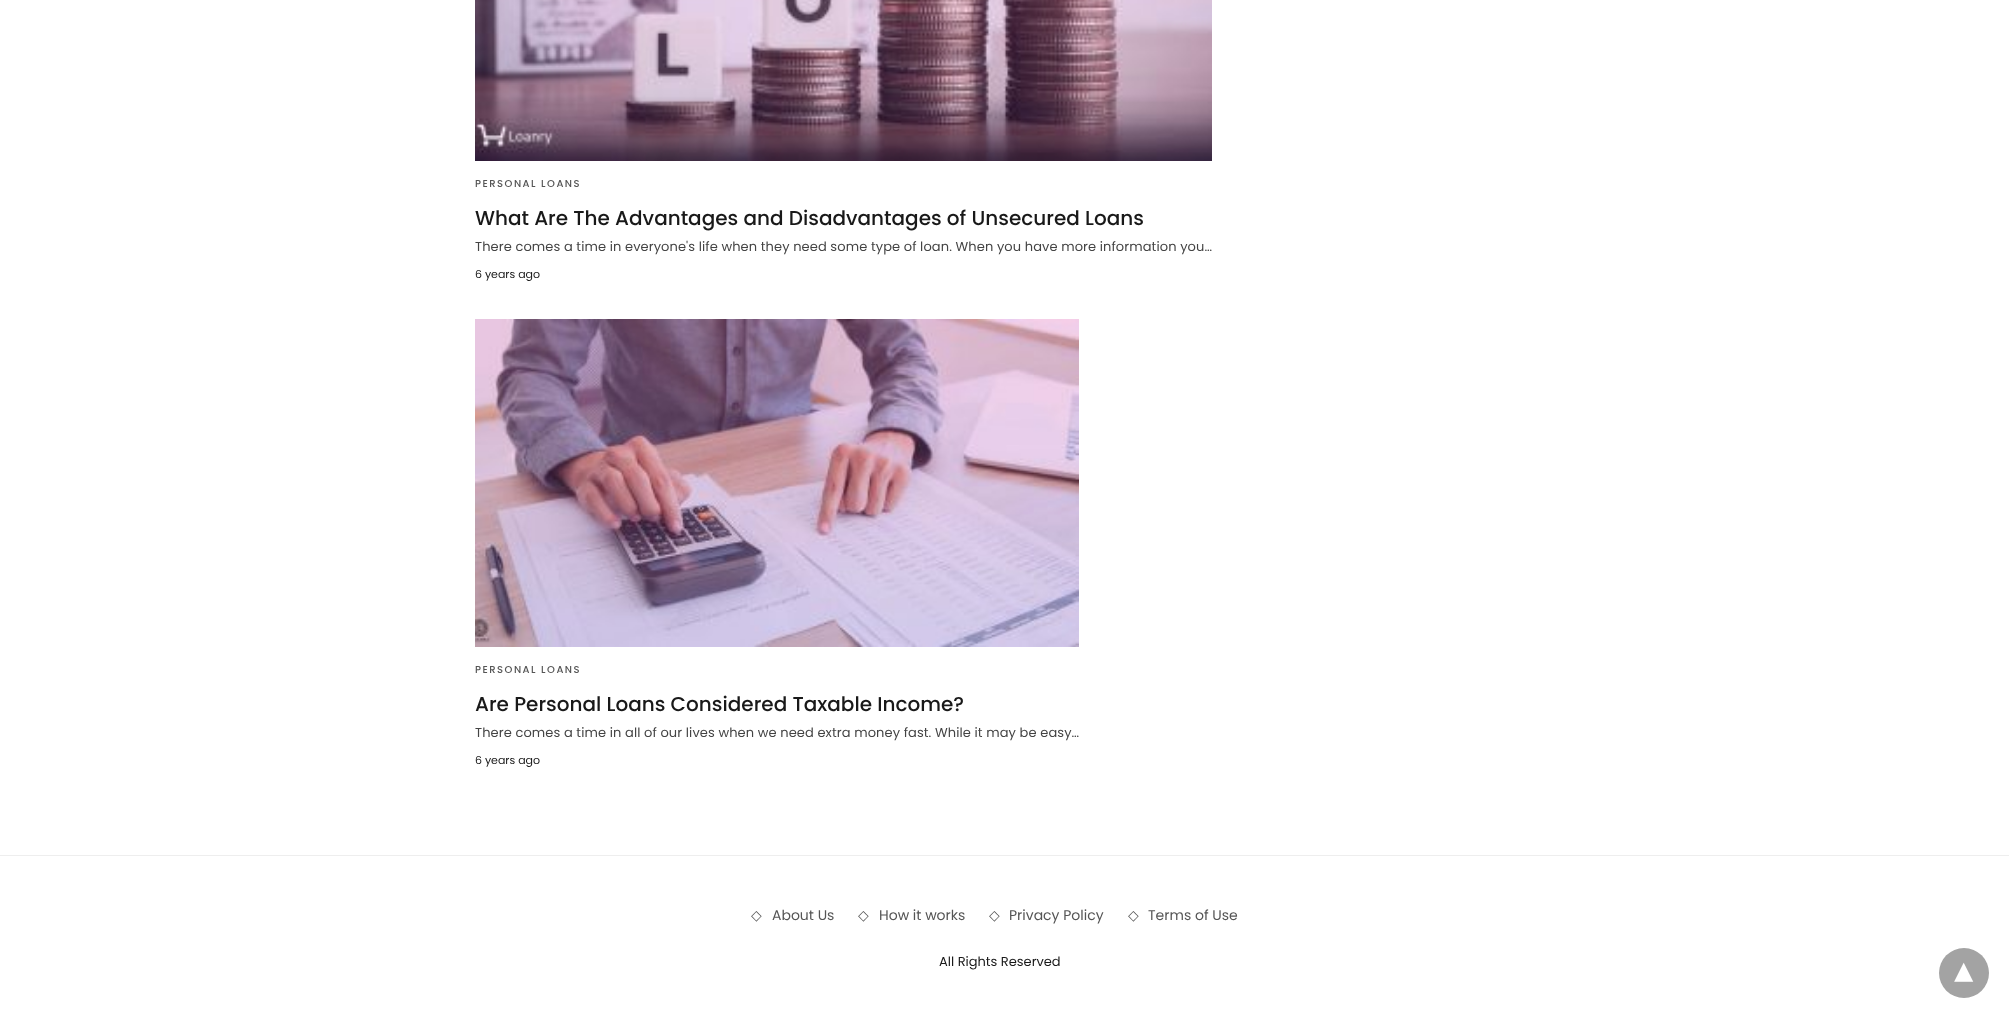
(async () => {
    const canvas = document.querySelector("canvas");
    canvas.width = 2009;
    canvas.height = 1018;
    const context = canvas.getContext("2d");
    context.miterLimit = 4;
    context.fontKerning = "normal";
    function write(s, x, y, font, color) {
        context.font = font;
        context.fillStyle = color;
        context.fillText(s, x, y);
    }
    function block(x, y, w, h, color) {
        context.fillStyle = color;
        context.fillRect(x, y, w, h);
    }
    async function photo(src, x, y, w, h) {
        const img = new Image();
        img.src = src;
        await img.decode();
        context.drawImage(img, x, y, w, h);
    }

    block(0, 0, 2009, 1018, "rgb(255, 255, 255)");
    await photo("media/1.png", 475, 0, 737, 161);
    context.letterSpacing = "1.5px";
    write("PERSONAL LOANS", 475, 187, "500 10px Poppins", "rgb(85, 85, 85)");
    context.letterSpacing = "0px";
    write("What Are The Advantages and Disadvantages of Unsecured Loans", 475, 225, "500 20px Poppins", "rgb(25, 25, 25)");
    context.letterSpacing = "0.1px";
    write("There comes a time in everyone's life when they need some type of loan. When you have more information you…", 475, 251, "13px Poppins", "rgb(68, 68, 68)");
    context.letterSpacing = "0px";
    write("6 years ago", 475, 278, "11px Poppins", "rgb(25, 25, 25)");
    await photo("media/2.png", 475, 319, 604, 328);
    context.letterSpacing = "1.5px";
    write("PERSONAL LOANS", 475, 673, "500 10px Poppins", "rgb(85, 85, 85)");
    context.letterSpacing = "0px";
    write("Are Personal Loans Considered Taxable Income?", 475, 711, "500 20px Poppins", "rgb(25, 25, 25)");
    context.letterSpacing = "0.1px";
    write("There comes a time in all of our lives when we need extra money fast. While it may be easy…", 475, 737, "13px Poppins", "rgb(68, 68, 68)");
    context.letterSpacing = "0px";
    write("6 years ago", 475, 764, "11px Poppins", "rgb(25, 25, 25)");
    block(0, 855, 2009, 1, "rgb(238, 238, 238)");
    write("◇", 751, 920, "14px DejaVu Sans", "rgb(85, 85, 85)");
    write("About Us", 772, 920, "14px Poppins", "rgb(85, 85, 85)");
    write("◇", 858, 920, "14px DejaVu Sans", "rgb(85, 85, 85)");
    write("How it works", 879, 920, "14px Poppins", "rgb(85, 85, 85)");
    write("◇", 989, 920, "14px DejaVu Sans", "rgb(85, 85, 85)");
    write("Privacy Policy", 1009, 920, "14px Poppins", "rgb(85, 85, 85)");
    write("◇", 1128, 920, "14px DejaVu Sans", "rgb(85, 85, 85)");
    write("Terms of Use", 1148, 920, "14px Poppins", "rgb(85, 85, 85)");
    write("All Rights Reserved", 939, 966, "13px Poppins", "rgb(25, 25, 25)");
    context.fillStyle = "rgb(163, 163, 163)";
    context.beginPath();
    context.arc(1964, 973, 25, 0, Math.PI * 2);
    context.fill();
    context.font = "bold 35px DejaVu Sans";
    context.fillStyle = "rgb(255, 255, 255)";
    context.save();
    context.translate(1973, 963);
    context.rotate(180 * Math.PI / 180);
    context.fillText("▾", 0, 0);
    context.restore();
})();
